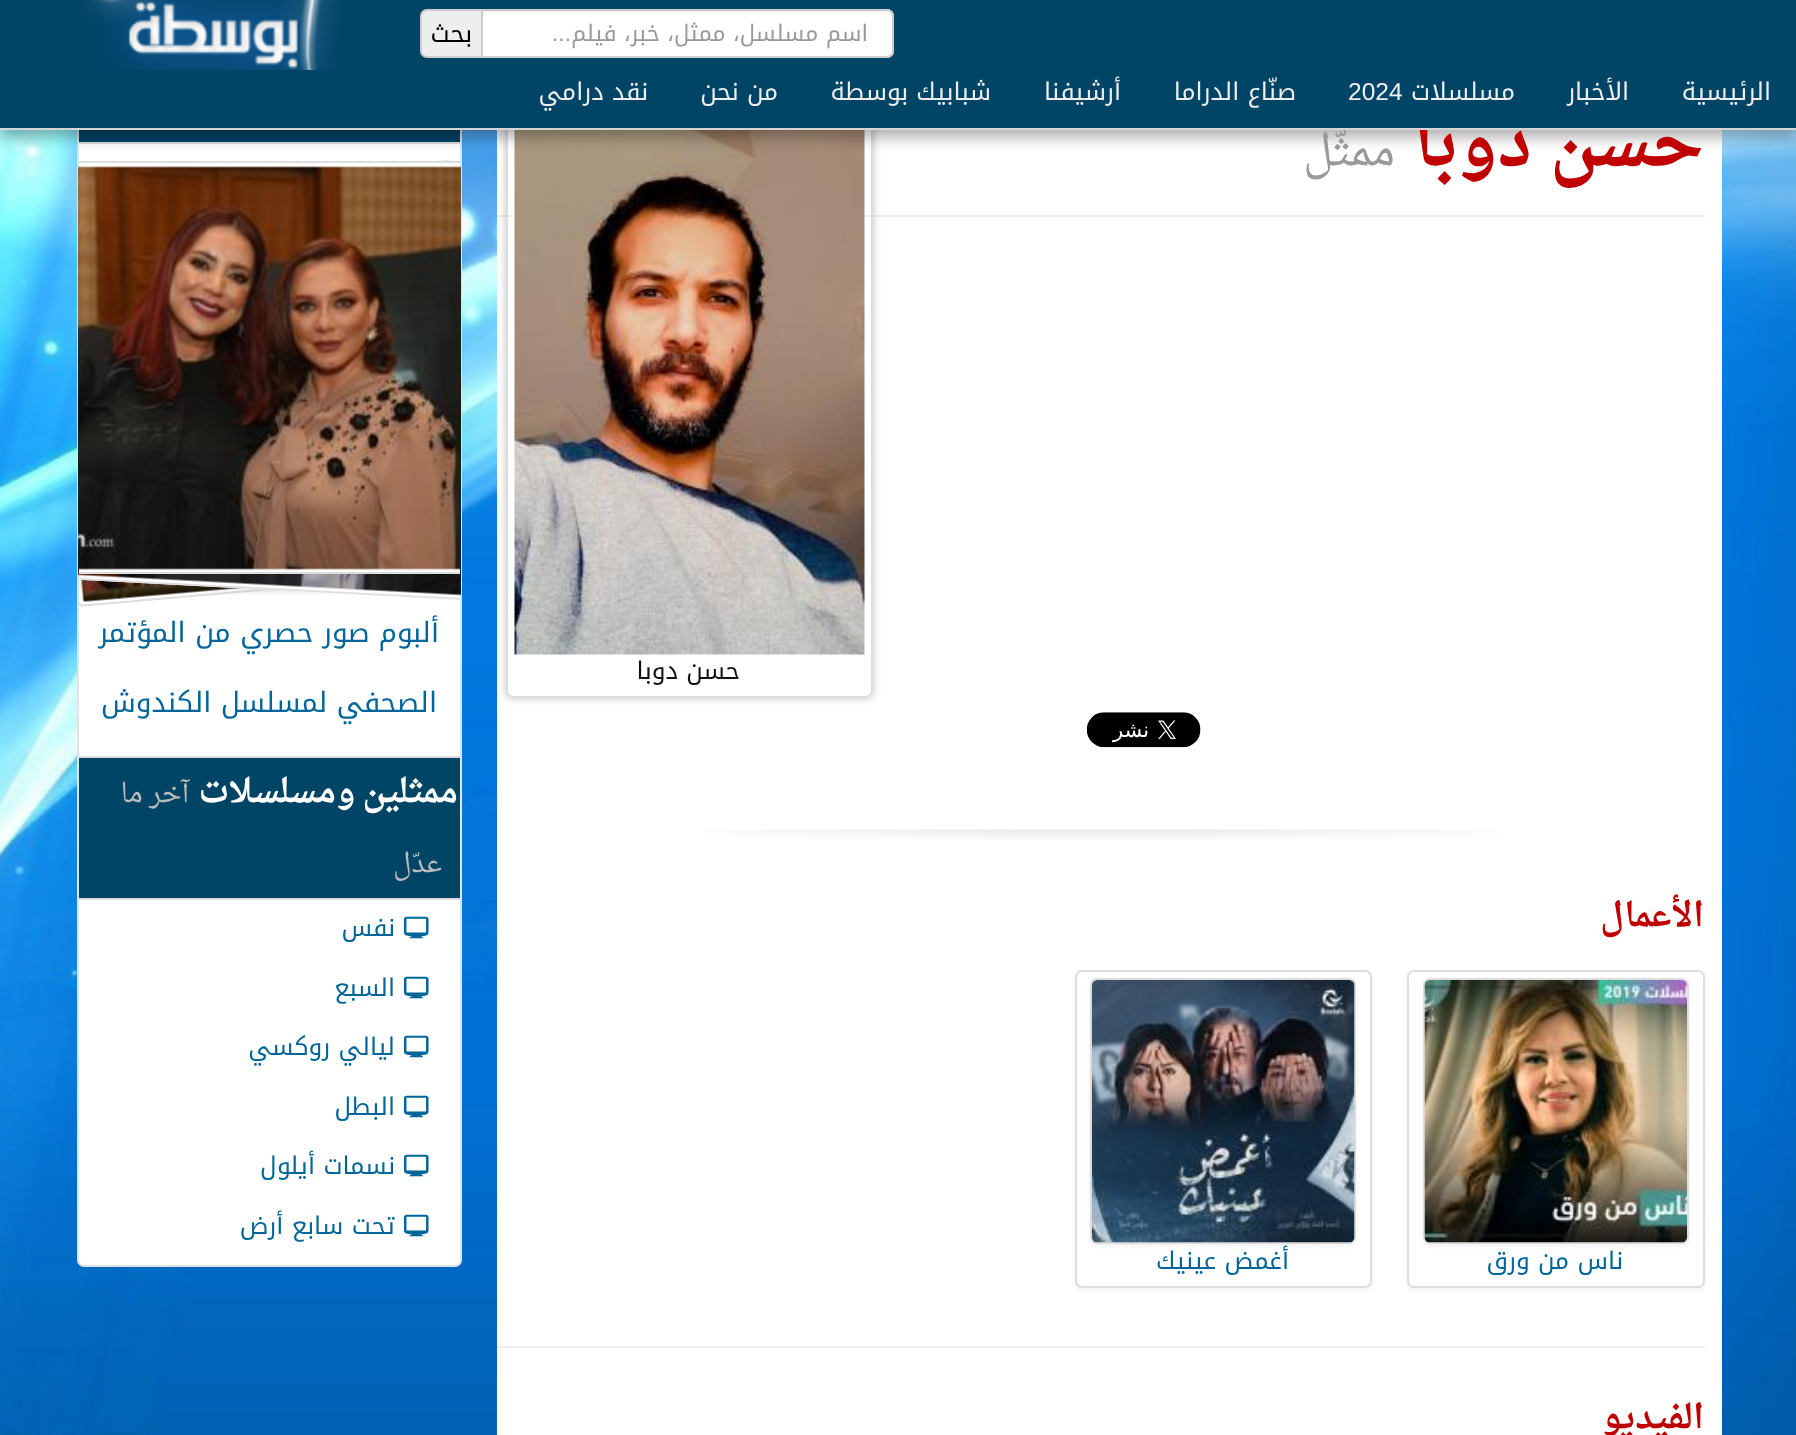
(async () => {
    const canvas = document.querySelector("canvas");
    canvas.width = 1796;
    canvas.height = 1435;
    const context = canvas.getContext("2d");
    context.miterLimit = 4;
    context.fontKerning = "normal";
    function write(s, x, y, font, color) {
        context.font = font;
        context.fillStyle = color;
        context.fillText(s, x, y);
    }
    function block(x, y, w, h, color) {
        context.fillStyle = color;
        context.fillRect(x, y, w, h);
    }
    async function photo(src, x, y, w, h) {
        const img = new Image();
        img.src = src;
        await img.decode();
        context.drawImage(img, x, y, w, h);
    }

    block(0, 0, 1796, 1435, "rgb(255, 255, 255)");
    await photo("media/1.png", 0, 130, 1796, 1305);
    block(497, 130, 1225, 1305, "rgb(255, 255, 255)");
    block(497, 215, 1208, 2, "rgb(238, 238, 238)");
    context.save();
    context.beginPath();
    context.moveTo(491, 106);
    context.lineTo(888, 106);
    context.lineTo(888, 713);
    context.lineTo(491, 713);
    context.closePath();
    context.moveTo(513, 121);
    context.lineTo(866, 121);
    context.bezierCurveTo(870, 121, 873, 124, 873, 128);
    context.lineTo(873, 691);
    context.bezierCurveTo(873, 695, 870, 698, 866, 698);
    context.lineTo(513, 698);
    context.bezierCurveTo(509, 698, 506, 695, 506, 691);
    context.lineTo(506, 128);
    context.bezierCurveTo(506, 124, 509, 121, 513, 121);
    context.closePath();
    context.clip("evenodd");
    context.fillStyle = "rgba(0, 0, 0, 0.25)";
    context.filter = "blur(4.5px)";
    context.beginPath();
    context.roundRect(506, 121, 367, 577, 7);
    context.fill();
    context.filter = "none";
    context.restore();
    context.beginPath();
    context.roundRect(507, 122, 365, 575, 6);
    context.strokeStyle = "rgb(221, 221, 221)";
    context.lineWidth = 2;
    context.stroke();
    await photo("media/3.png", 514, 130, 351, 525);
    context.fillStyle = "rgb(255, 255, 255)";
    context.beginPath();
    context.roundRect(78, 61, 383, 1205, 6);
    context.fill();
    context.strokeStyle = "rgb(227, 227, 227)";
    context.stroke();
    block(79, 130, 381, 12, "rgb(0, 68, 102)");
    block(79, 142, 381, 2, "rgb(221, 221, 221)");
    context.fillStyle = "rgba(0, 0, 0, 0.25)";
    context.filter = "blur(7px)";
    context.beginPath();
    context.rect(0, 9, 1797, 129);
    context.fill();
    context.filter = "none";
    context.fillStyle = "rgba(0, 0, 0, 0.1)";
    context.filter = "blur(9px)";
    context.beginPath();
    context.rect(0, 2, 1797, 129);
    context.fill();
    context.filter = "none";
    context.direction = "rtl";
    write("حسن دوبا", 1704, 165, "bold 67.5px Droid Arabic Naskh", "rgb(192, 0, 0)");
    block(0, 0, 1796, 128, "rgb(0, 68, 102)");
    write("ممثّل", 1395, 165, "43px Droid Arabic Naskh", "rgb(153, 153, 153)");
    block(0, 128, 1796, 2, "rgb(212, 212, 212)");
    context.fillStyle = "rgb(255, 255, 255)";
    context.beginPath();
    context.roundRect(481, 9, 413, 49, [0, 7, 7, 0]);
    context.fill();
    context.fillStyle = "rgb(236, 236, 236)";
    context.beginPath();
    context.moveTo(483, 12);
    context.lineTo(887, 12);
    context.bezierCurveTo(890, 12, 892, 15, 892, 18);
    context.lineTo(892, 52);
    context.lineTo(892, 55);
    context.bezierCurveTo(892, 54, 893, 52, 893, 51);
    context.lineTo(893, 16);
    context.bezierCurveTo(893, 13, 891, 11, 888, 11);
    context.lineTo(483, 11);
    context.closePath();
    context.fill();
    context.beginPath();
    context.roundRect(482, 10, 411, 47, [0, 6, 6, 0]);
    context.strokeStyle = "rgb(204, 204, 204)";
    context.stroke();
    write("اسم مسلسل، ممثل، خبر، فيلم", 868, 41, "22.75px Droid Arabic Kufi", "rgb(153, 153, 153)");
    write("...", 571, 41, "22.75px Liberation Sans", "rgb(153, 153, 153)");
    context.fillStyle = "rgb(238, 238, 238)";
    context.beginPath();
    context.roundRect(421, 10, 61, 47, [6, 0, 0, 6]);
    context.fill();
    context.stroke();
    write("بحث", 472, 42, "24.5px Droid Arabic Kufi", "rgb(0, 0, 0)");
    await photo("media/2.png", 82, 0, 258, 70);
    write("الرئيسية", 1771, 100, "24.5px Droid Arabic Kufi", "rgb(238, 238, 238)");
    write("الأخبار", 1629, 100, "24.5px Droid Arabic Kufi", "rgb(238, 238, 238)");
    write("مسلسلات", 1515, 100, "24.5px Droid Arabic Kufi", "rgb(238, 238, 238)");
    context.direction = "ltr";
    write("2024", 1348, 100, "24.5px Liberation Sans", "rgb(238, 238, 238)");
    context.direction = "rtl";
    write("صنّاع الدراما", 1296, 100, "24.5px Droid Arabic Kufi", "rgb(238, 238, 238)");
    write("أرشيفنا", 1121, 100, "24.5px Droid Arabic Kufi", "rgb(238, 238, 238)");
    write("شبابيك بوسطة", 991, 100, "24.5px Droid Arabic Kufi", "rgb(238, 238, 238)");
    write("من نحن", 778, 100, "24.5px Droid Arabic Kufi", "rgb(238, 238, 238)");
    write("نقد درامي", 648, 100, "24.5px Droid Arabic Kufi", "rgb(238, 238, 238)");
    write("حسن دوبا", 740, 679, "24.5px Droid Arabic Kufi", "rgb(17, 17, 17)");
    await photo("media/4.png", 1086, 712, 115, 36);
    await photo("media/5.png", 705, 829, 792, 11);
    write("الأعمال", 1704, 926, "bold 33.25px Droid Arabic Naskh", "rgb(192, 0, 0)");
    context.save();
    context.beginPath();
    context.moveTo(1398, 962);
    context.lineTo(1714, 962);
    context.lineTo(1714, 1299);
    context.lineTo(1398, 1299);
    context.closePath();
    context.moveTo(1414, 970);
    context.lineTo(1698, 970);
    context.bezierCurveTo(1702, 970, 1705, 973, 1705, 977);
    context.lineTo(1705, 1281);
    context.bezierCurveTo(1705, 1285, 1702, 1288, 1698, 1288);
    context.lineTo(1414, 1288);
    context.bezierCurveTo(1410, 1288, 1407, 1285, 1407, 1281);
    context.lineTo(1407, 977);
    context.bezierCurveTo(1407, 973, 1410, 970, 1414, 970);
    context.closePath();
    context.clip("evenodd");
    context.fillStyle = "rgba(0, 0, 0, 0.06)";
    context.filter = "blur(2.5px)";
    context.beginPath();
    context.roundRect(1407, 971, 298, 319, 7);
    context.fill();
    context.filter = "none";
    context.restore();
    context.beginPath();
    context.roundRect(1408, 971, 296, 316, 6);
    context.strokeStyle = "rgb(221, 221, 221)";
    context.stroke();
    context.fillStyle = "rgba(0, 0, 0, 0.06)";
    context.filter = "blur(2.5px)";
    context.beginPath();
    context.roundRect(1423, 980, 266, 266, 7);
    context.fill();
    context.filter = "none";
    context.beginPath();
    context.roundRect(1424, 979, 264, 264, 6);
    context.stroke();
    await photo("media/6.png", 1424, 980, 263, 263);
    write("ناس من ورق", 1623, 1269, "24.5px Droid Arabic Kufi", "rgb(0, 102, 153)");
    context.save();
    context.beginPath();
    context.moveTo(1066, 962);
    context.lineTo(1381, 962);
    context.lineTo(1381, 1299);
    context.lineTo(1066, 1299);
    context.closePath();
    context.moveTo(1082, 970);
    context.lineTo(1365, 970);
    context.bezierCurveTo(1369, 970, 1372, 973, 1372, 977);
    context.lineTo(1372, 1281);
    context.bezierCurveTo(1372, 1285, 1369, 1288, 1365, 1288);
    context.lineTo(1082, 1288);
    context.bezierCurveTo(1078, 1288, 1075, 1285, 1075, 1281);
    context.lineTo(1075, 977);
    context.bezierCurveTo(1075, 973, 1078, 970, 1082, 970);
    context.closePath();
    context.clip("evenodd");
    context.fillStyle = "rgba(0, 0, 0, 0.06)";
    context.filter = "blur(2.5px)";
    context.beginPath();
    context.roundRect(1075, 971, 297, 319, 7);
    context.fill();
    context.filter = "none";
    context.restore();
    context.beginPath();
    context.roundRect(1076, 971, 295, 316, 6);
    context.stroke();
    context.fillStyle = "rgba(0, 0, 0, 0.06)";
    context.filter = "blur(2.5px)";
    context.beginPath();
    context.roundRect(1090, 980, 266, 266, 7);
    context.fill();
    context.filter = "none";
    context.beginPath();
    context.roundRect(1091, 979, 264, 264, 6);
    context.stroke();
    await photo("media/7.png", 1092, 980, 263, 263);
    write("أغمض عينيك", 1289, 1269, "24.5px Droid Arabic Kufi", "rgb(0, 102, 153)");
    block(497, 1346, 1208, 2, "rgb(238, 238, 238)");
    write("الفيديو", 1704, 1428, "bold 33.25px Droid Arabic Naskh", "rgb(192, 0, 0)");
    context.save();
    context.beginPath();
    context.rect(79, 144, 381, 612);
    context.clip();
    context.fillStyle = "rgba(0, 0, 0, 0.06)";
    context.filter = "blur(2.5px)";
    context.beginPath();
    context.roundRect(60, 179, 413, 413, 7);
    context.fill();
    context.filter = "none";
    context.restore();
    context.save();
    context.beginPath();
    context.rect(79, 144, 381, 612);
    context.clip();
    context.fillStyle = "rgb(255, 255, 255)";
    context.beginPath();
    context.moveTo(48, 195);
    context.lineTo(446, 160);
    context.bezierCurveTo(450, 160, 453, 163, 453, 167);
    context.lineTo(488, 564);
    context.bezierCurveTo(489, 568, 486, 571, 482, 572);
    context.lineTo(84, 606);
    context.bezierCurveTo(81, 607, 77, 604, 77, 600);
    context.lineTo(42, 203);
    context.bezierCurveTo(42, 199, 45, 195, 48, 195);
    context.closePath();
    context.fill();
    context.beginPath();
    context.moveTo(48.5, 196);
    context.lineTo(446, 161);
    context.bezierCurveTo(449.5, 160.5, 452.5, 163, 452.5, 166.5);
    context.lineTo(487.5, 564);
    context.bezierCurveTo(487.5, 567.5, 485, 570.5, 482, 570.5);
    context.lineTo(84.5, 605.5);
    context.bezierCurveTo(81, 606, 78, 603.5, 77.5, 600);
    context.lineTo(43, 202.5);
    context.bezierCurveTo(42.5, 199, 45, 196, 48.5, 196);
    context.closePath();
    context.lineWidth = 1.8;
    context.stroke();
    context.restore();
    await photo("media/9.png", 81, 579, 162, 23);
    context.save();
    context.beginPath();
    context.rect(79, 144, 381, 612);
    context.clip();
    context.fillStyle = "rgba(0, 0, 0, 0.06)";
    context.filter = "blur(2.5px)";
    context.beginPath();
    context.roundRect(68, 179, 413, 413, 7);
    context.fill();
    context.filter = "none";
    context.restore();
    context.save();
    context.beginPath();
    context.rect(79, 144, 381, 612);
    context.clip();
    context.fillStyle = "rgb(255, 255, 255)";
    context.beginPath();
    context.moveTo(85, 167);
    context.lineTo(484, 187);
    context.bezierCurveTo(488, 188, 491, 191, 491, 195);
    context.lineTo(470, 593);
    context.bezierCurveTo(469, 597, 466, 600, 462, 600);
    context.lineTo(64, 579);
    context.bezierCurveTo(60, 579, 57, 576, 57, 572);
    context.lineTo(78, 173);
    context.bezierCurveTo(78, 169, 82, 166, 85, 167);
    context.closePath();
    context.fill();
    context.beginPath();
    context.moveTo(85.5, 167.5);
    context.lineTo(484, 188.5);
    context.bezierCurveTo(487, 188.5, 490, 191.5, 489.5, 195);
    context.lineTo(469, 593);
    context.bezierCurveTo(468.5, 596.5, 465.5, 599, 462.5, 599);
    context.lineTo(64, 578);
    context.bezierCurveTo(60.5, 578, 58, 575, 58, 571.5);
    context.lineTo(79, 173.5);
    context.bezierCurveTo(79, 170, 82, 167.5, 85.5, 167.5);
    context.closePath();
    context.lineWidth = 1.8;
    context.stroke();
    context.restore();
    await photo("media/10.png", 78, 568, 383, 28);
    context.save();
    context.beginPath();
    context.rect(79, 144, 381, 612);
    context.clip();
    context.fillStyle = "rgba(0, 0, 0, 0.06)";
    context.filter = "blur(2.5px)";
    context.beginPath();
    context.roundRect(58, 163, 413, 413, 7);
    context.fill();
    context.filter = "none";
    context.restore();
    block(79, 163, 381, 409, "rgb(255, 255, 255)");
    context.save();
    context.beginPath();
    context.rect(79, 144, 381, 612);
    context.clip();
    context.beginPath();
    context.roundRect(59, 162, 411, 411, 6);
    context.stroke();
    context.restore();
    await photo("media/8.png", 78, 166, 383, 404);
    write("ألبوم صور حصري من المؤتمر", 439, 642, "28px Droid Arabic Kufi", "rgb(0, 102, 153)");
    write("الصحفي لمسلسل الكندوش", 437, 712, "28px Droid Arabic Kufi", "rgb(0, 102, 153)");
    block(79, 758, 381, 140, "rgb(0, 68, 102)");
    block(79, 756, 381, 2, "rgb(221, 221, 221)");
    block(79, 898, 381, 2, "rgb(221, 221, 221)");
    context.wordSpacing = "-2px";
    write("ممثلين ومسلسلات", 458, 802, "bold 33.25px Droid Arabic Naskh", "rgb(255, 255, 255)");
    context.wordSpacing = "0px";
    write("آخر ما", 189, 802, "26.5px Droid Arabic Naskh", "rgb(187, 187, 187)");
    write("عدّل", 442, 872, "26.5px Droid Arabic Naskh", "rgb(187, 187, 187)");
    context.direction = "ltr";
    write("💻", 404, 936, "24.5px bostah", "rgb(0, 102, 153)");
    context.direction = "rtl";
    write("نفس", 395, 936, "24.5px Droid Arabic Kufi", "rgb(0, 102, 153)");
    context.direction = "ltr";
    write("💻", 404, 996, "24.5px bostah", "rgb(0, 102, 153)");
    context.direction = "rtl";
    write("السبع", 395, 996, "24.5px Droid Arabic Kufi", "rgb(0, 102, 153)");
    context.direction = "ltr";
    write("💻", 404, 1055, "24.5px bostah", "rgb(0, 102, 153)");
    context.direction = "rtl";
    write("ليالي روكسي", 395, 1055, "24.5px Droid Arabic Kufi", "rgb(0, 102, 153)");
    context.direction = "ltr";
    write("💻", 404, 1115, "24.5px bostah", "rgb(0, 102, 153)");
    context.direction = "rtl";
    write("البطل", 395, 1115, "24.5px Droid Arabic Kufi", "rgb(0, 102, 153)");
    context.direction = "ltr";
    write("💻", 404, 1174, "24.5px bostah", "rgb(0, 102, 153)");
    context.direction = "rtl";
    write("نسمات أيلول", 395, 1174, "24.5px Droid Arabic Kufi", "rgb(0, 102, 153)");
    context.direction = "ltr";
    write("💻", 404, 1234, "24.5px bostah", "rgb(0, 102, 153)");
    context.direction = "rtl";
    write("تحت سابع أرض", 395, 1234, "24.5px Droid Arabic Kufi", "rgb(0, 102, 153)");
})();
